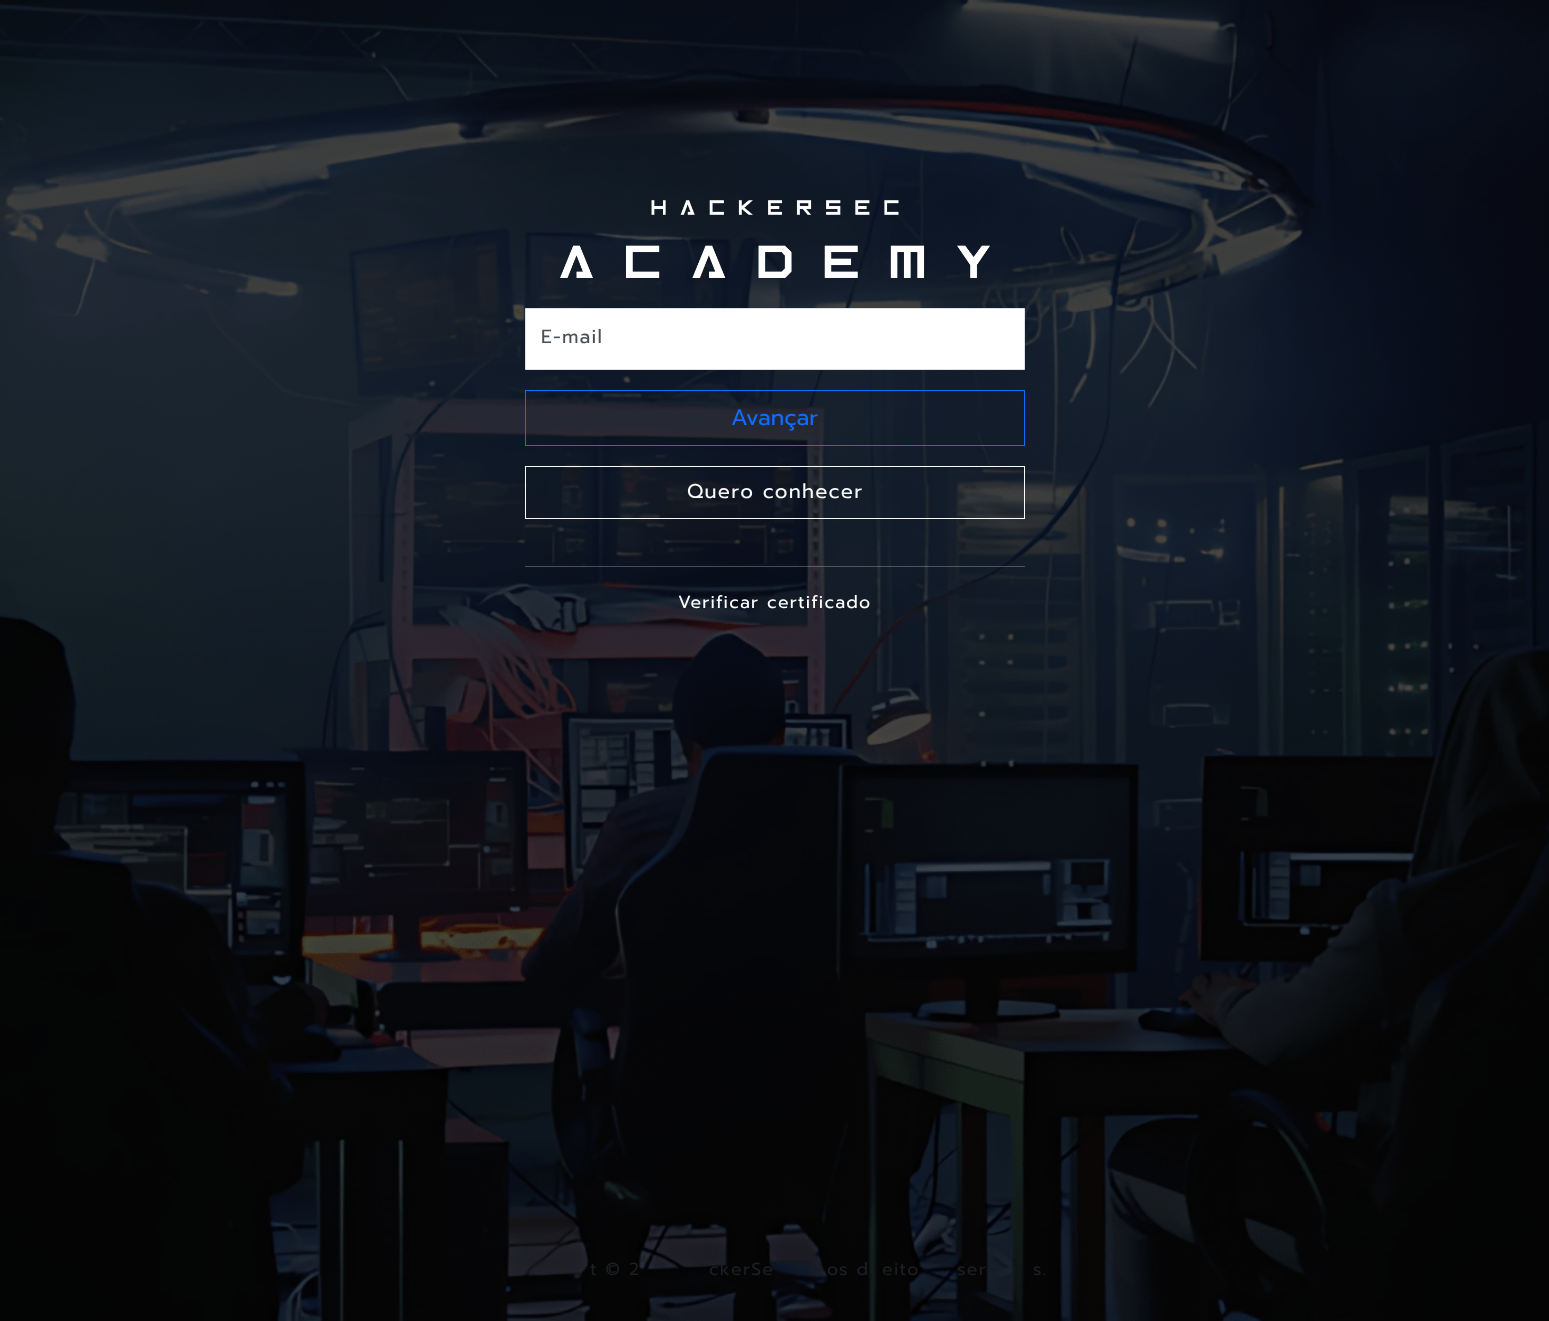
(async () => {
    const canvas = document.querySelector("canvas");
    canvas.width = 1549;
    canvas.height = 1321;
    const context = canvas.getContext("2d");
    context.miterLimit = 4;
    context.fontKerning = "normal";
    function write(s, x, y, font, color) {
        context.font = font;
        context.fillStyle = color;
        context.fillText(s, x, y);
    }
    function block(x, y, w, h, color) {
        context.fillStyle = color;
        context.fillRect(x, y, w, h);
    }
    async function photo(src, x, y, w, h) {
        const img = new Image();
        img.src = src;
        await img.decode();
        context.drawImage(img, x, y, w, h);
    }

    block(0, 0, 1549, 1321, "rgb(255, 255, 255)");
    await photo("media/1.png", 0, 0, 1549, 1321);
    await photo("media/2.png", 651, 200, 248, 15);
    await photo("media/3.png", 560, 245, 430, 33);
    context.beginPath();
    context.rect(525.5, 308.5, 499, 61);
    context.fill();
    context.strokeStyle = "rgb(222, 226, 230)";
    context.stroke();
    context.letterSpacing = "1.25px";
    write("E-mail", 541, 343, "19px Prompt", "rgb(73, 80, 87)");
    context.strokeStyle = "rgb(13, 110, 253)";
    context.strokeRect(525.5, 390.5, 499, 55);
    context.letterSpacing = "0px";
    write("Avançar", 731, 425, "22.5px Prompt", "rgb(13, 110, 253)");
    context.strokeStyle = "rgb(248, 249, 250)";
    context.strokeRect(525.5, 466.5, 499, 52);
    context.letterSpacing = "1.25px";
    write("Quero conhecer", 687, 498, "20px Prompt", "rgb(248, 249, 250)");
    block(525, 566, 500, 1, "rgba(255, 255, 255, 0.25)");
    write("Verificar certificado", 678, 608, "17.5px Prompt", "rgb(255, 255, 255)");
    write("t © 2", 590, 1275, "17.5px Prompt", "rgb(28, 31, 35)");
    write("ckerSe", 709, 1275, "17.5px Prompt", "rgb(28, 31, 35)");
    write("os d", 827, 1275, "17.5px Prompt", "rgb(28, 31, 35)");
    write("eito", 882, 1275, "17.5px Prompt", "rgb(28, 31, 35)");
    write("ser", 957, 1275, "17.5px Prompt", "rgb(28, 31, 35)");
    write("s.", 1033, 1275, "17.5px Prompt", "rgb(28, 31, 35)");
})();
